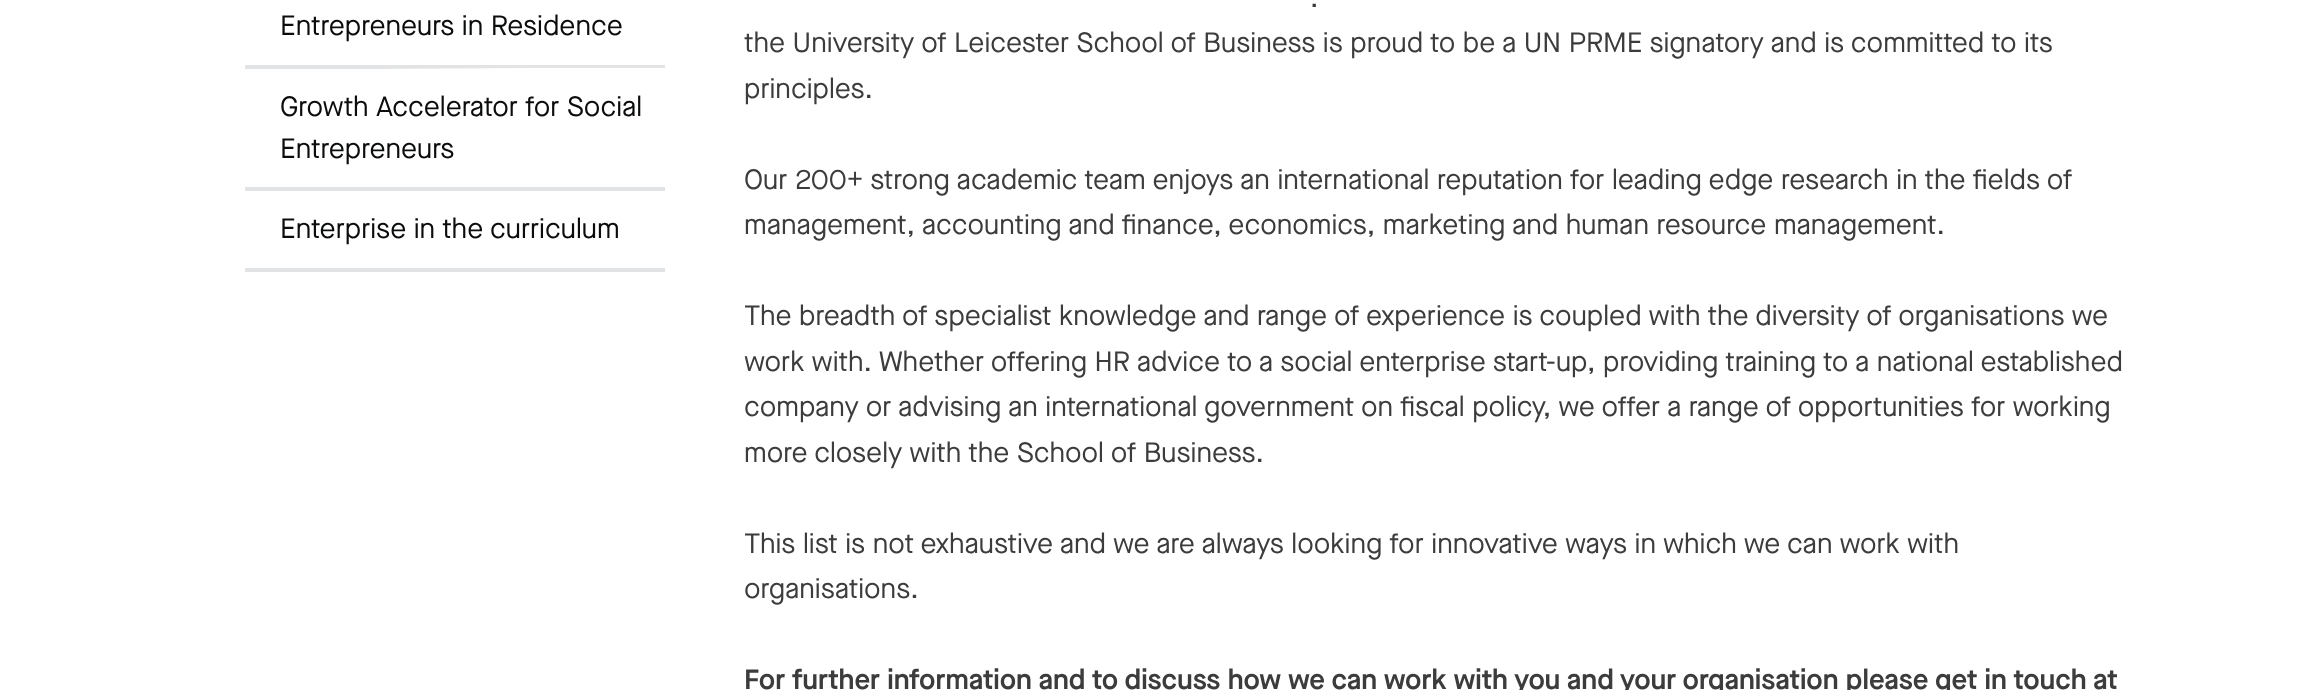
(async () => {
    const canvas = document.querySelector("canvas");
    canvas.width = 2310;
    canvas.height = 690;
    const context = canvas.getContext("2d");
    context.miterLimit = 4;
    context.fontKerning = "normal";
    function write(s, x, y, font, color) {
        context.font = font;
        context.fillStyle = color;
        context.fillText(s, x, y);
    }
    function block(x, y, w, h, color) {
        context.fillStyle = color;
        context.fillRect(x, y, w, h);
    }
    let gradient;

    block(0, 0, 2310, 690, "rgb(255, 255, 255)");
    block(245, 268, 420, 4, "rgb(226, 227, 228)");
    block(245, 65, 420, 4, "rgb(226, 227, 228)");
    write("Entrepreneurs in Residence", 280, 35, "28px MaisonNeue", "rgb(11, 12, 12)");
    gradient = context.createLinearGradient(245, 128, 665, 128);
    gradient.addColorStop(0.3, "rgba(255, 255, 255, 0)");
    gradient.addColorStop(0.66, "rgb(255, 255, 255)");
    context.fillStyle = gradient;
    context.fillRect(384, 68, 281, 1);
    block(245, 187, 420, 4, "rgb(226, 227, 228)");
    write("Growth Accelerator for Social", 280, 116, "28px MaisonNeue", "rgb(11, 12, 12)");
    write("Entrepreneurs", 280, 158, "28px MaisonNeue", "rgb(11, 12, 12)");
    write("Enterprise in the curriculum", 280, 238, "28px MaisonNeue", "rgb(11, 12, 12)");
    write(".", 1310, 7, "28px MaisonNeue", "rgb(60, 60, 60)");
    write("the University of Leicester School of Business is proud to be a UN PRME signatory and is committed to its", 744, 52, "28px MaisonNeue", "rgb(60, 60, 60)");
    write("principles.", 744, 98, "28px MaisonNeue", "rgb(60, 60, 60)");
    write("Our 200+ strong academic team enjoys an international reputation for leading edge research in the fields of", 744, 189, "28px MaisonNeue", "rgb(60, 60, 60)");
    write("management, accounting and finance, economics, marketing and human resource management.", 744, 234, "28px MaisonNeue", "rgb(60, 60, 60)");
    write("The breadth of specialist knowledge and range of experience is coupled with the diversity of organisations we", 744, 325, "28px MaisonNeue", "rgb(60, 60, 60)");
    write("work with. Whether offering HR advice to a social enterprise start-up, providing training to a national established", 744, 371, "28px MaisonNeue", "rgb(60, 60, 60)");
    write("company or advising an international government on fiscal policy, we offer a range of opportunities for working", 744, 416, "28px MaisonNeue", "rgb(60, 60, 60)");
    write("more closely with the School of Business.", 744, 462, "28px MaisonNeue", "rgb(60, 60, 60)");
    write("This list is not exhaustive and we are always looking for innovative ways in which we can work with", 744, 553, "28px MaisonNeue", "rgb(60, 60, 60)");
    write("organisations.", 744, 598, "28px MaisonNeue", "rgb(60, 60, 60)");
    write("For further information and to discuss how we can work with you and your organisation please get in touch at", 744, 689, "600 28px MaisonNeue", "rgb(60, 60, 60)");
})();
